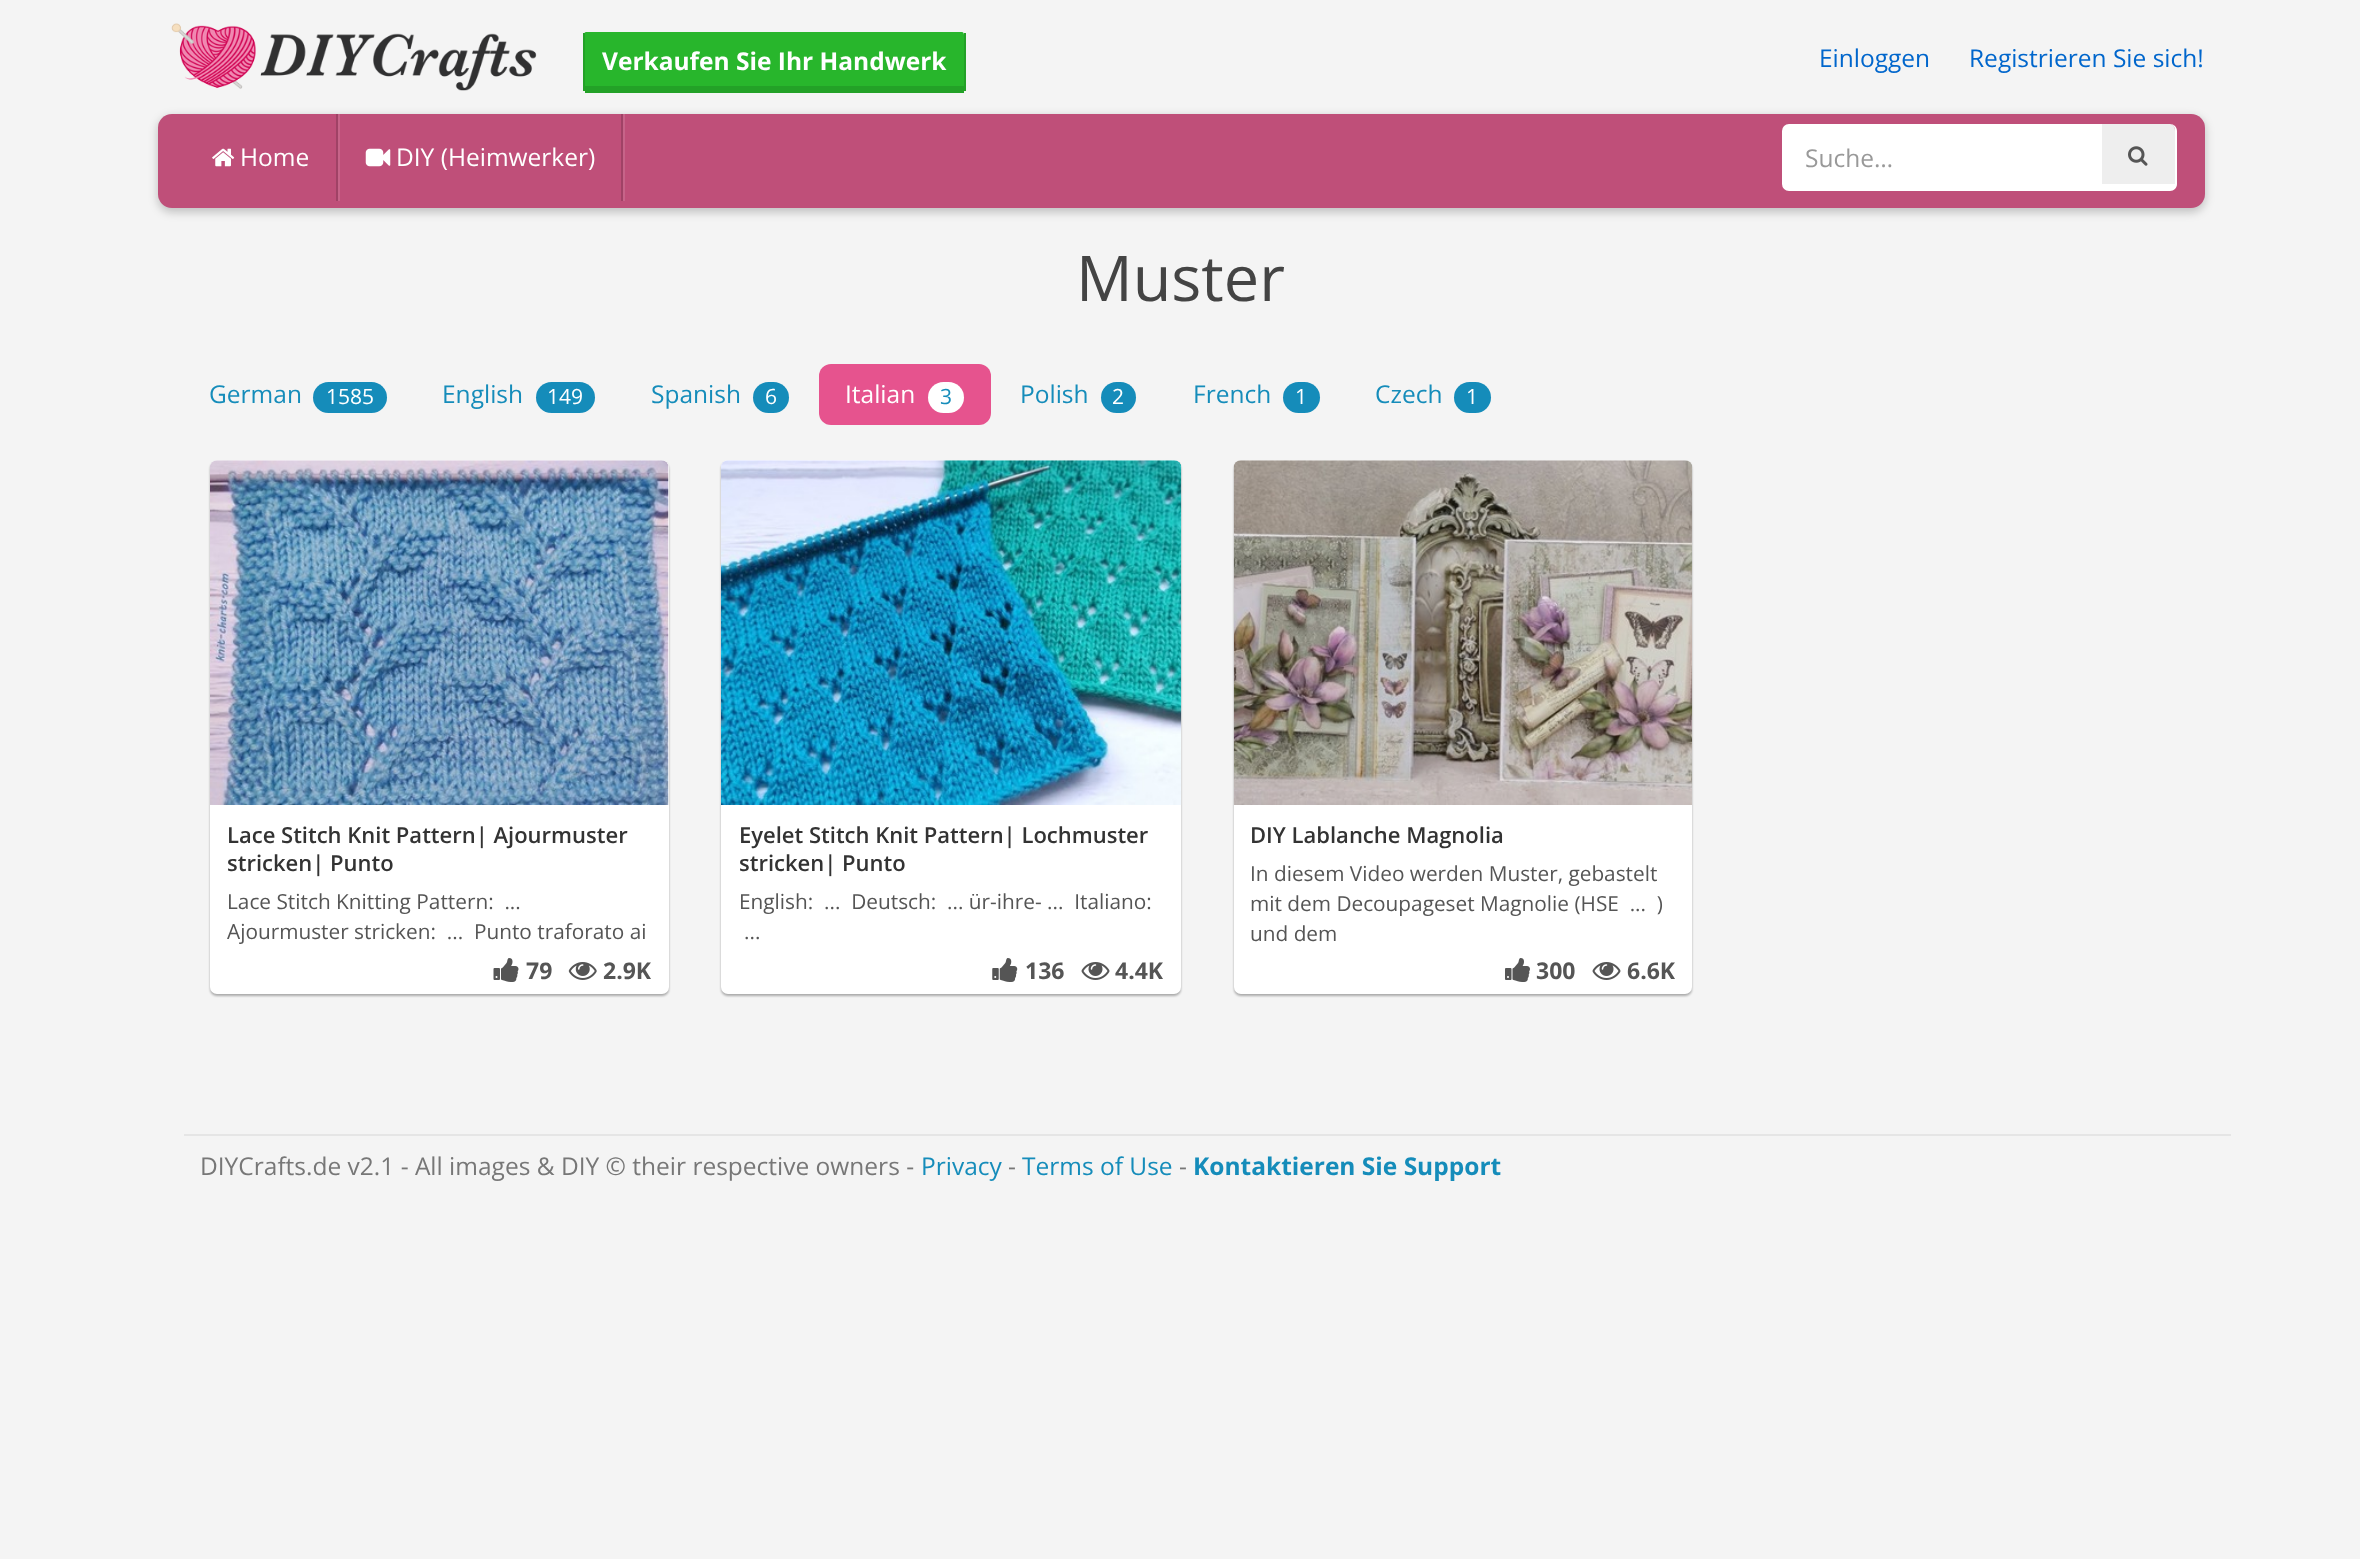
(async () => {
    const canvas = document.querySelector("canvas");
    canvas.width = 2360;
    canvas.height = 1559;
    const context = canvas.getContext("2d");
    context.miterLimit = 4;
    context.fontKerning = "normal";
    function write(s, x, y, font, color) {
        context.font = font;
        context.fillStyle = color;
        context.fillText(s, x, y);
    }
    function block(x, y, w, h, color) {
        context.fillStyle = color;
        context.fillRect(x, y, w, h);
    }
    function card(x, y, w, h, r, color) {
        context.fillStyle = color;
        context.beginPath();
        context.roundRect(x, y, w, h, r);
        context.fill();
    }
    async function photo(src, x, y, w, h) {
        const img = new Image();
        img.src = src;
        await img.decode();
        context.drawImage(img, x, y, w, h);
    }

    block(0, 0, 2360, 1559, "rgb(244, 244, 244)");
    await photo("media/1.png", 171, 23, 366, 68);
    context.fillStyle = "rgb(40, 182, 44)";
    context.beginPath();
    context.moveTo(586, 32);
    context.lineTo(962, 32);
    context.bezierCurveTo(963, 32, 964, 33, 964, 35);
    context.lineTo(964, 86);
    context.lineTo(584, 86);
    context.lineTo(584, 35);
    context.bezierCurveTo(584, 33, 585, 32, 586, 32);
    context.closePath();
    context.fill();
    block(964, 33, 2, 58, "rgb(35, 161, 39)");
    block(585, 86, 379, 7, "rgb(35, 161, 39)");
    block(583, 33, 2, 58, "rgb(35, 161, 39)");
    write("Verkaufen Sie Ihr Handwerk", 602, 70, "bold 24.5px Open Sans", "rgb(255, 255, 255)");
    write("Einloggen", 1819, 67, "24.5px Open Sans", "rgb(0, 102, 204)");
    write("Registrieren Sie sich!", 1969, 67, "24.5px Open Sans", "rgb(0, 102, 204)");
    context.fillStyle = "rgba(0, 0, 0, 0.22)";
    context.filter = "blur(5px)";
    context.beginPath();
    context.roundRect(158, 117, 2047, 95, 14);
    context.fill();
    context.filter = "none";
    card(158, 114, 2047, 94, 14, "rgb(191, 79, 121)");
    block(336, 114, 2, 87, "rgb(160, 66, 102)");
    await photo("media/2.png", 212, 148, 23, 19);
    write("Home", 240, 166, "24.5px Open Sans", "rgb(255, 255, 255)");
    block(621, 114, 2, 87, "rgb(160, 66, 102)");
    block(338, 114, 2, 87, "rgb(199, 100, 137)");
    await photo("media/3.png", 365, 148, 26, 19);
    write("DIY (Heimwerker)", 396, 166, "24.5px Open Sans", "rgb(255, 255, 255)");
    block(623, 114, 2, 87, "rgb(199, 100, 137)");
    context.fillStyle = "rgb(255, 255, 255)";
    context.beginPath();
    context.roundRect(1783, 125, 318, 65, [6, 0, 0, 6]);
    context.fill();
    context.strokeStyle = "rgb(255, 255, 255)";
    context.lineWidth = 2;
    context.stroke();
    write("Suche…", 1805, 167, "24.5px Open Sans", "rgb(153, 153, 153)");
    context.fillStyle = "rgb(238, 238, 238)";
    context.beginPath();
    context.moveTo(2102, 124);
    context.lineTo(2170, 124);
    context.bezierCurveTo(2173, 124, 2175, 127, 2175, 131);
    context.lineTo(2175, 184);
    context.lineTo(2102, 184);
    context.closePath();
    context.fill();
    context.fillStyle = "rgb(255, 255, 255)";
    context.beginPath();
    context.moveTo(2100, 124);
    context.lineTo(2170, 124);
    context.bezierCurveTo(2174, 124, 2177, 127, 2177, 131);
    context.lineTo(2177, 184);
    context.bezierCurveTo(2177, 188, 2174, 191, 2170, 191);
    context.lineTo(2100, 191);
    context.closePath();
    context.moveTo(2102, 124);
    context.lineTo(2170, 124);
    context.bezierCurveTo(2173, 124, 2175, 127, 2175, 131);
    context.lineTo(2175, 184);
    context.lineTo(2102, 184);
    context.closePath();
    context.fill("evenodd");
    await photo("media/4.png", 2128, 146, 20, 20);
    write("Muster", 1076, 301, "63px Open Sans", "rgb(68, 68, 68)");
    write("German", 209, 403, "24.5px Open Sans", "rgb(21, 140, 186)");
    card(313, 382, 74, 31, 15.5, "rgb(21, 140, 186)");
    write("1585", 326, 404, "21px Open Sans", "rgb(255, 255, 255)");
    write("English", 442, 403, "24.5px Open Sans", "rgb(21, 140, 186)");
    card(536, 382, 59, 31, 15.5, "rgb(21, 140, 186)");
    write("149", 547, 404, "21px Open Sans", "rgb(255, 255, 255)");
    write("Spanish", 651, 403, "24.5px Open Sans", "rgb(21, 140, 186)");
    card(753, 382, 36, 31, 15.5, "rgb(21, 140, 186)");
    write("6", 765, 404, "21px Open Sans", "rgb(255, 255, 255)");
    card(819, 364, 172, 61, 12, "rgb(230, 83, 142)");
    write("Italian", 845, 403, "24.5px Open Sans", "rgb(255, 255, 255)");
    card(928, 382, 36, 31, 15.5, "rgb(255, 255, 255)");
    write("3", 940, 404, "21px Open Sans", "rgb(21, 140, 186)");
    write("Polish", 1020, 403, "24.5px Open Sans", "rgb(21, 140, 186)");
    card(1101, 382, 35, 31, 15.5, "rgb(21, 140, 186)");
    write("2", 1112, 404, "21px Open Sans", "rgb(255, 255, 255)");
    write("French", 1193, 403, "24.5px Open Sans", "rgb(21, 140, 186)");
    card(1283, 382, 37, 31, 15.5, "rgb(21, 140, 186)");
    write("1", 1295, 404, "21px Open Sans", "rgb(255, 255, 255)");
    write("Czech", 1375, 403, "24.5px Open Sans", "rgb(21, 140, 186)");
    card(1454, 382, 37, 31, 15.5, "rgb(21, 140, 186)");
    write("1", 1466, 404, "21px Open Sans", "rgb(255, 255, 255)");
    context.fillStyle = "rgba(0, 0, 0, 0.3)";
    context.filter = "blur(1px)";
    context.beginPath();
    context.roundRect(210, 462, 459, 534, 7);
    context.fill();
    context.filter = "none";
    card(210, 460, 459, 534, 7, "rgb(255, 255, 255)");
    await photo("media/5.png", 210, 460, 459, 345);
    write("Lace Stitch Knit Pattern| Ajourmuster", 227, 843, "600 22px Open Sans", "rgb(51, 51, 51)");
    write("stricken| Punto", 227, 871, "600 22px Open Sans", "rgb(51, 51, 51)");
    write("Lace Stitch Knitting Pattern:  ...", 227, 909, "20.8px Open Sans", "rgb(85, 85, 85)");
    write("Ajourmuster stricken:  ...  Punto traforato ai", 227, 939, "20.8px Open Sans", "rgb(85, 85, 85)");
    await photo("media/6.png", 493, 958, 26, 24);
    write("79", 526, 979, "bold 23px Open Sans", "rgb(85, 85, 85)");
    await photo("media/7.png", 568, 962, 29, 18);
    write("2.9K", 603, 979, "bold 23px Open Sans", "rgb(85, 85, 85)");
    context.fillStyle = "rgba(0, 0, 0, 0.3)";
    context.filter = "blur(1px)";
    context.beginPath();
    context.roundRect(721, 462, 460, 534, 7);
    context.fill();
    context.filter = "none";
    card(721, 460, 460, 534, 7, "rgb(255, 255, 255)");
    await photo("media/8.png", 721, 460, 461, 345);
    write("Eyelet Stitch Knit Pattern| Lochmuster", 739, 843, "600 22px Open Sans", "rgb(51, 51, 51)");
    write("stricken| Punto", 739, 871, "600 22px Open Sans", "rgb(51, 51, 51)");
    write("English:  ...  Deutsch:  ... ür-ihre- ...  Italiano:", 739, 909, "20.8px Open Sans", "rgb(85, 85, 85)");
    write("...", 744, 939, "20.8px Open Sans", "rgb(85, 85, 85)");
    await photo("media/9.png", 992, 958, 26, 24);
    write("136", 1025, 979, "bold 23px Open Sans", "rgb(85, 85, 85)");
    await photo("media/10.png", 1081, 962, 29, 18);
    write("4.4K", 1115, 979, "bold 23px Open Sans", "rgb(85, 85, 85)");
    context.fillStyle = "rgba(0, 0, 0, 0.3)";
    context.filter = "blur(1px)";
    context.beginPath();
    context.roundRect(1234, 462, 458, 534, 7);
    context.fill();
    context.filter = "none";
    card(1234, 460, 458, 534, 7, "rgb(255, 255, 255)");
    await photo("media/11.png", 1233, 460, 460, 345);
    write("DIY Lablanche Magnolia", 1250, 843, "600 22px Open Sans", "rgb(51, 51, 51)");
    write("In diesem Video werden Muster, gebastelt", 1250, 881, "20.8px Open Sans", "rgb(85, 85, 85)");
    write("mit dem Decoupageset Magnolie (HSE  ...  )", 1250, 911, "20.8px Open Sans", "rgb(85, 85, 85)");
    write("und dem", 1250, 941, "20.8px Open Sans", "rgb(85, 85, 85)");
    await photo("media/12.png", 1505, 958, 25, 24);
    write("300", 1536, 979, "bold 23px Open Sans", "rgb(85, 85, 85)");
    await photo("media/10.png", 1592, 962, 29, 18);
    write("6.6K", 1627, 979, "bold 23px Open Sans", "rgb(85, 85, 85)");
    block(184, 1134, 2047, 2, "rgb(229, 229, 229)");
    write("DIYCrafts.de v2.1 - All images & DIY © their respective owners -", 200, 1175, "24.5px Open Sans", "rgb(119, 119, 119)");
    write("Privacy", 921, 1175, "24.5px Open Sans", "rgb(21, 140, 186)");
    write("-", 1008, 1175, "24.5px Open Sans", "rgb(119, 119, 119)");
    write("Terms of Use", 1022, 1175, "24.5px Open Sans", "rgb(21, 140, 186)");
    write("-", 1179, 1175, "24.5px Open Sans", "rgb(119, 119, 119)");
    write("Kontaktieren Sie Support", 1193, 1175, "bold 24.5px Open Sans", "rgb(21, 140, 186)");
})();
